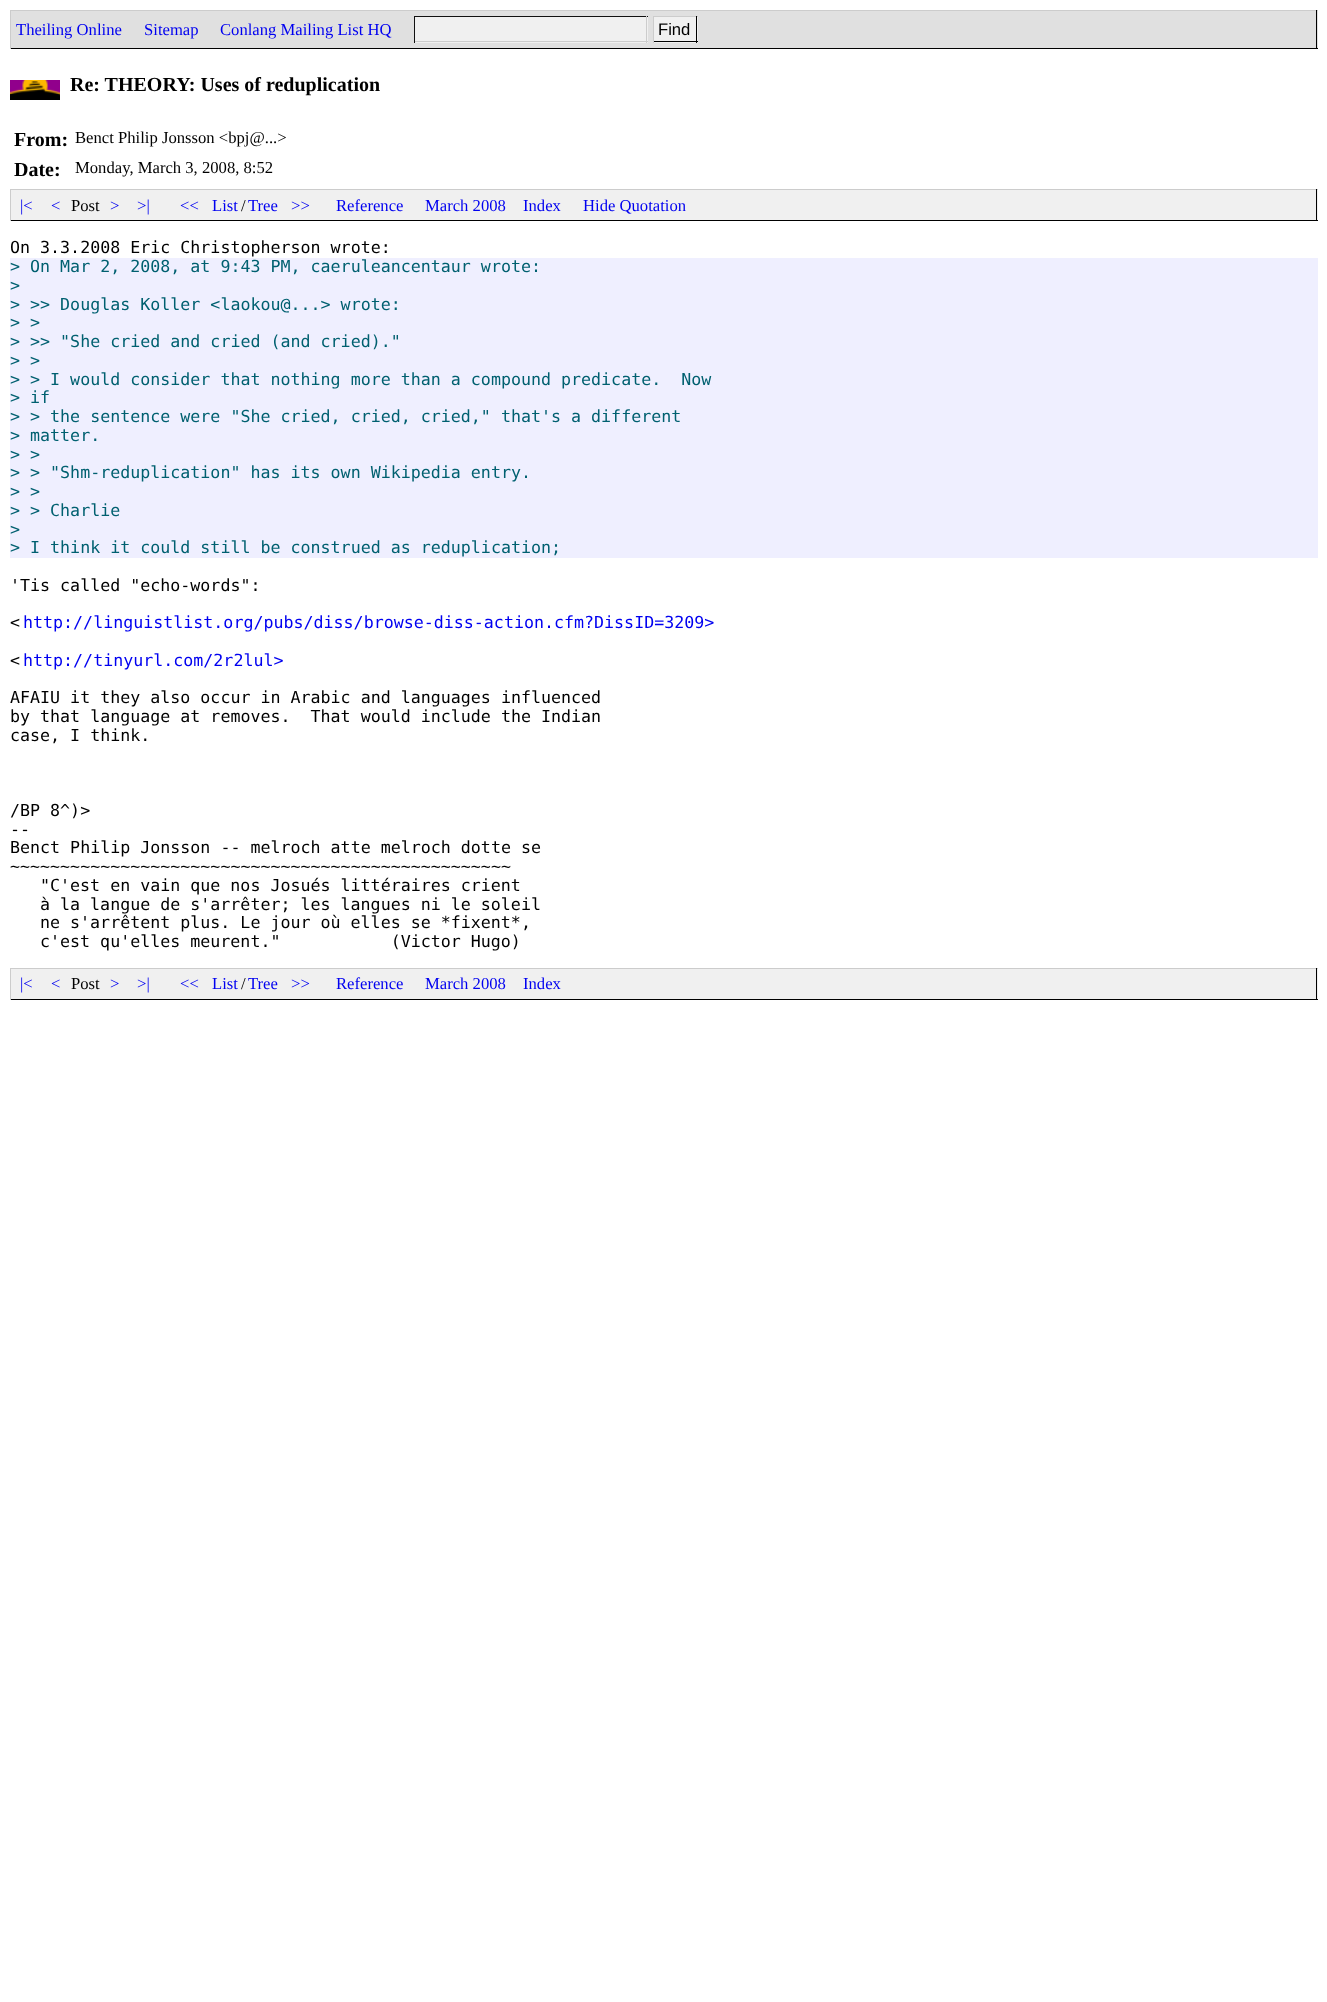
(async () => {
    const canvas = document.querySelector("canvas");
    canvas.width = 1327;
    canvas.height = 2002;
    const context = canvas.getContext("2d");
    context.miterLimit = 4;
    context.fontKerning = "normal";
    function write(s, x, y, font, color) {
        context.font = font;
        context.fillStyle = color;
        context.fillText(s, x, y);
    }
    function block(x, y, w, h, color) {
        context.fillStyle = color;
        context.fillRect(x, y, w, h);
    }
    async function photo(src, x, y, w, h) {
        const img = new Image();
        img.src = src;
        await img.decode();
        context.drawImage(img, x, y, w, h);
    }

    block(0, 0, 1327, 2002, "rgb(255, 255, 255)");
    block(11, 11, 1307, 37, "rgb(224, 224, 224)");
    block(10, 10, 1308, 1, "rgb(204, 204, 204)");
    block(1316, 10, 1, 39, "rgb(0, 0, 0)");
    block(10, 48, 1308, 1, "rgb(0, 0, 0)");
    block(10, 10, 1, 39, "rgb(204, 204, 204)");
    write("Theiling Online", 16, 35, "16.65px Liberation Serif", "rgb(0, 0, 240)");
    write("Sitemap", 144, 35, "16.65px Liberation Serif", "rgb(0, 0, 240)");
    write("Conlang Mailing List HQ", 220, 35, "16.65px Liberation Serif", "rgb(0, 0, 240)");
    block(415, 17, 233, 26, "rgb(240, 240, 240)");
    block(414, 16, 234, 1, "rgb(17, 17, 17)");
    block(646, 16, 1, 27, "rgb(204, 204, 204)");
    block(414, 41, 234, 1, "rgb(204, 204, 204)");
    block(414, 16, 1, 27, "rgb(17, 17, 17)");
    block(654, 17, 44, 26, "rgb(240, 240, 240)");
    block(653, 16, 45, 1, "rgb(204, 204, 204)");
    block(696, 16, 1, 27, "rgb(0, 0, 0)");
    block(653, 41, 45, 1, "rgb(0, 0, 0)");
    block(653, 16, 1, 27, "rgb(204, 204, 204)");
    write("Find", 658, 35, "16.65px Liberation Sans", "rgb(0, 0, 0)");
    await photo("media/1.png", 10, 80, 50, 20);
    write("Re: THEORY: Uses of reduplication", 70, 91, "bold 20px Liberation Serif", "rgb(0, 0, 0)");
    write("From:", 14, 146, "bold 20px Liberation Serif", "rgb(0, 0, 0)");
    write("Benct Philip Jonsson <bpj@...>", 75, 143, "16.65px Liberation Serif", "rgb(0, 0, 0)");
    write("Date:", 14, 176, "bold 20px Liberation Serif", "rgb(0, 0, 0)");
    write("Monday, March 3, 2008, 8:52", 75, 173, "16.65px Liberation Serif", "rgb(0, 0, 0)");
    block(11, 190, 1307, 30, "rgb(240, 240, 240)");
    block(10, 189, 1308, 1, "rgb(204, 204, 204)");
    block(1316, 189, 1, 32, "rgb(0, 0, 0)");
    block(10, 220, 1308, 1, "rgb(0, 0, 0)");
    block(10, 189, 1, 32, "rgb(204, 204, 204)");
    write("|<", 20, 211, "16.65px Liberation Serif", "rgb(0, 0, 240)");
    write("<", 51, 211, "16.65px Liberation Serif", "rgb(0, 0, 240)");
    write("Post", 71, 211, "16.65px Liberation Serif", "rgb(0, 0, 0)");
    write(">", 110, 211, "16.65px Liberation Serif", "rgb(0, 0, 240)");
    write(">|", 137, 211, "16.65px Liberation Serif", "rgb(0, 0, 240)");
    write("<<", 180, 211, "16.65px Liberation Serif", "rgb(0, 0, 240)");
    write("List", 212, 211, "16.65px Liberation Serif", "rgb(0, 0, 240)");
    write("/", 241, 211, "16.65px Liberation Serif", "rgb(0, 0, 0)");
    write("Tree", 248, 211, "16.65px Liberation Serif", "rgb(0, 0, 240)");
    write(">>", 291, 211, "16.65px Liberation Serif", "rgb(0, 0, 240)");
    write("Reference", 336, 211, "16.65px Liberation Serif", "rgb(0, 0, 240)");
    write("March 2008", 425, 211, "16.65px Liberation Serif", "rgb(0, 0, 240)");
    write("Index", 523, 211, "16.65px Liberation Serif", "rgb(0, 0, 240)");
    write("Hide Quotation", 583, 211, "16.65px Liberation Serif", "rgb(0, 0, 240)");
    write("On 3.3.2008 Eric Christopherson wrote:", 10, 253, "16.65px DejaVu Sans Mono", "rgb(0, 0, 0)");
    block(10, 258, 1308, 300, "rgb(239, 239, 255)");
    write("> On Mar 2, 2008, at 9:43 PM, caeruleancentaur wrote:", 10, 272, "16.65px DejaVu Sans Mono", "rgb(0, 96, 112)");
    write(">", 10, 291, "16.65px DejaVu Sans Mono", "rgb(0, 96, 112)");
    write("> >> Douglas Koller <laokou@...> wrote:", 10, 310, "16.65px DejaVu Sans Mono", "rgb(0, 96, 112)");
    write("> >", 10, 328, "16.65px DejaVu Sans Mono", "rgb(0, 96, 112)");
    write("> >> \"She cried and cried (and cried).\"", 10, 347, "16.65px DejaVu Sans Mono", "rgb(0, 96, 112)");
    write("> >", 10, 366, "16.65px DejaVu Sans Mono", "rgb(0, 96, 112)");
    write("> > I would consider that nothing more than a compound predicate.  Now", 10, 385, "16.65px DejaVu Sans Mono", "rgb(0, 96, 112)");
    write("> if", 10, 403, "16.65px DejaVu Sans Mono", "rgb(0, 96, 112)");
    write("> > the sentence were \"She cried, cried, cried,\" that's a different", 10, 422, "16.65px DejaVu Sans Mono", "rgb(0, 96, 112)");
    write("> matter.", 10, 441, "16.65px DejaVu Sans Mono", "rgb(0, 96, 112)");
    write("> >", 10, 460, "16.65px DejaVu Sans Mono", "rgb(0, 96, 112)");
    write("> > \"Shm-reduplication\" has its own Wikipedia entry.", 10, 478, "16.65px DejaVu Sans Mono", "rgb(0, 96, 112)");
    write("> >", 10, 497, "16.65px DejaVu Sans Mono", "rgb(0, 96, 112)");
    write("> > Charlie", 10, 516, "16.65px DejaVu Sans Mono", "rgb(0, 96, 112)");
    write(">", 10, 535, "16.65px DejaVu Sans Mono", "rgb(0, 96, 112)");
    write("> I think it could still be construed as reduplication;", 10, 553, "16.65px DejaVu Sans Mono", "rgb(0, 96, 112)");
    write("'Tis called \"echo-words\":", 10, 591, "16.65px DejaVu Sans Mono", "rgb(0, 0, 0)");
    write("<", 10, 628, "16.65px DejaVu Sans Mono", "rgb(0, 0, 0)");
    write("http://linguistlist.org/pubs/diss/browse-diss-action.cfm?DissID=3209>", 23, 628, "16.65px DejaVu Sans Mono", "rgb(0, 0, 240)");
    write("<", 10, 666, "16.65px DejaVu Sans Mono", "rgb(0, 0, 0)");
    write("http://tinyurl.com/2r2lul>", 23, 666, "16.65px DejaVu Sans Mono", "rgb(0, 0, 240)");
    write("AFAIU it they also occur in Arabic and languages influenced", 10, 703, "16.65px DejaVu Sans Mono", "rgb(0, 0, 0)");
    write("by that language at removes.  That would include the Indian", 10, 722, "16.65px DejaVu Sans Mono", "rgb(0, 0, 0)");
    write("case, I think.", 10, 741, "16.65px DejaVu Sans Mono", "rgb(0, 0, 0)");
    write("/BP 8^)>", 10, 816, "16.65px DejaVu Sans Mono", "rgb(0, 0, 0)");
    write("--", 10, 835, "16.65px DejaVu Sans Mono", "rgb(0, 0, 0)");
    write("Benct Philip Jonsson -- melroch atte melroch dotte se", 10, 853, "16.65px DejaVu Sans Mono", "rgb(0, 0, 0)");
    write("~~~~~~~~~~~~~~~~~~~~~~~~~~~~~~~~~~~~~~~~~~~~~~~~~~", 10, 872, "16.65px DejaVu Sans Mono", "rgb(0, 0, 0)");
    write("\"C'est en vain que nos Josués littéraires crient", 40, 891, "16.65px DejaVu Sans Mono", "rgb(0, 0, 0)");
    write("à la langue de s'arrêter; les langues ni le soleil", 40, 910, "16.65px DejaVu Sans Mono", "rgb(0, 0, 0)");
    write("ne s'arrêtent plus. Le jour où elles se *fixent*,", 40, 928, "16.65px DejaVu Sans Mono", "rgb(0, 0, 0)");
    write("c'est qu'elles meurent.\"           (Victor Hugo)", 40, 947, "16.65px DejaVu Sans Mono", "rgb(0, 0, 0)");
    block(11, 969, 1307, 30, "rgb(240, 240, 240)");
    block(10, 968, 1308, 1, "rgb(204, 204, 204)");
    block(1316, 968, 1, 32, "rgb(0, 0, 0)");
    block(10, 999, 1308, 1, "rgb(0, 0, 0)");
    block(10, 968, 1, 32, "rgb(204, 204, 204)");
    write("|<", 20, 989, "16.65px Liberation Serif", "rgb(0, 0, 240)");
    write("<", 51, 989, "16.65px Liberation Serif", "rgb(0, 0, 240)");
    write("Post", 71, 989, "16.65px Liberation Serif", "rgb(0, 0, 0)");
    write(">", 110, 989, "16.65px Liberation Serif", "rgb(0, 0, 240)");
    write(">|", 137, 989, "16.65px Liberation Serif", "rgb(0, 0, 240)");
    write("<<", 180, 989, "16.65px Liberation Serif", "rgb(0, 0, 240)");
    write("List", 212, 989, "16.65px Liberation Serif", "rgb(0, 0, 240)");
    write("/", 241, 989, "16.65px Liberation Serif", "rgb(0, 0, 0)");
    write("Tree", 248, 989, "16.65px Liberation Serif", "rgb(0, 0, 240)");
    write(">>", 291, 989, "16.65px Liberation Serif", "rgb(0, 0, 240)");
    write("Reference", 336, 989, "16.65px Liberation Serif", "rgb(0, 0, 240)");
    write("March 2008", 425, 989, "16.65px Liberation Serif", "rgb(0, 0, 240)");
    write("Index", 523, 989, "16.65px Liberation Serif", "rgb(0, 0, 240)");
})();
